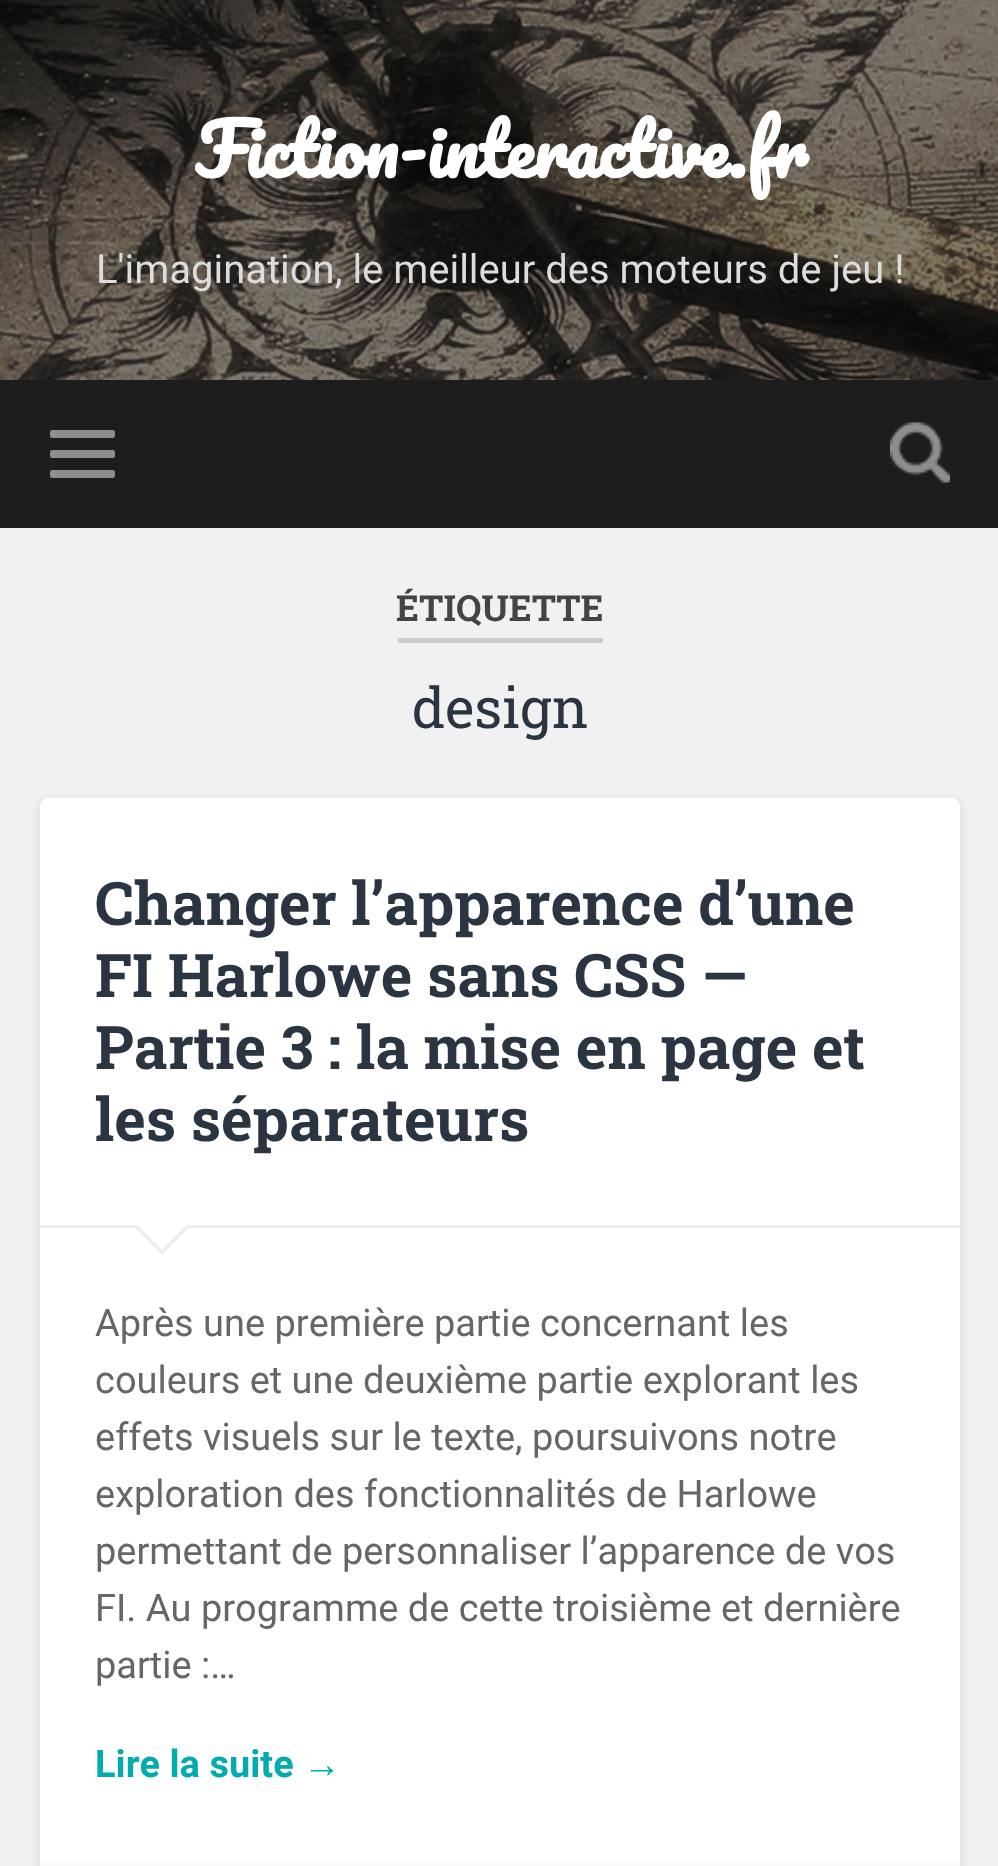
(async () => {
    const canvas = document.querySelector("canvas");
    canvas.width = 998;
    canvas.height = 1866;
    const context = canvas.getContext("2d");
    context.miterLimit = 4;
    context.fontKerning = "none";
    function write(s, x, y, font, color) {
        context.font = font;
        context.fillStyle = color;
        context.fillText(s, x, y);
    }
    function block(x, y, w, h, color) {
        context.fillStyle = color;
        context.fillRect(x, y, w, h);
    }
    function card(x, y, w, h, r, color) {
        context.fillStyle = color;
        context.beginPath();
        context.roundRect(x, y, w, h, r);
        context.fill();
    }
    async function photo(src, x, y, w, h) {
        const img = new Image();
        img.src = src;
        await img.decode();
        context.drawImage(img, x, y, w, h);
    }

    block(0, 0, 998, 1866, "rgb(241, 241, 241)");
    await photo("media/1.png", 0, 0, 998, 380);
    write("Fiction-interactive.fr", 195, 178, "bold 70px Pacifico", "rgb(255, 255, 255)");
    write("L'imagination, le meilleur des moteurs de jeu !", 96, 283, "40px Roboto", "rgb(221, 221, 221)");
    block(0, 380, 998, 148, "rgb(29, 29, 29)");
    card(50, 430, 65, 8, 2.5, "rgb(142, 142, 142)");
    card(50, 450, 65, 8, 2.5, "rgb(142, 142, 142)");
    card(50, 470, 65, 8, 2.5, "rgb(142, 142, 142)");
    await photo("media/2.png", 890, 422, 60, 61);
    block(398, 638, 205, 5, "rgb(204, 204, 204)");
    write("ÉTIQUETTE", 396, 621, "bold 36px Roboto Slab", "rgb(68, 68, 68)");
    write("design", 412, 728, "56px Roboto Slab", "rgb(43, 53, 66)");
    context.fillStyle = "rgba(0, 0, 0, 0.1)";
    context.filter = "blur(5px)";
    context.beginPath();
    context.roundRect(40, 800, 920, 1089, 8);
    context.fill();
    context.filter = "none";
    card(40, 798, 920, 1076, 8, "rgb(255, 255, 255)");
    block(40, 1225, 920, 3, "rgb(238, 238, 238)");
    write("Changer l’apparence d’une", 95, 925, "bold 60px Roboto Slab", "rgb(43, 53, 66)");
    write("FI Harlowe sans CSS —", 95, 997, "bold 60px Roboto Slab", "rgb(43, 53, 66)");
    write("Partie 3 : la mise en page et", 95, 1069, "bold 60px Roboto Slab", "rgb(43, 53, 66)");
    write("les séparateurs", 95, 1141, "bold 60px Roboto Slab", "rgb(43, 53, 66)");
    context.fillStyle = "rgb(238, 238, 238)";
    context.beginPath();
    context.moveTo(132, 1225);
    context.lineTo(192, 1225);
    context.lineTo(162, 1255);
    context.closePath();
    context.fill();
    context.fillStyle = "rgb(255, 255, 255)";
    context.beginPath();
    context.moveTo(135, 1222);
    context.lineTo(190, 1222);
    context.lineTo(162, 1250);
    context.closePath();
    context.fill();
    write("Après une première partie concernant les", 95, 1336, "38px Roboto", "rgb(102, 102, 102)");
    write("couleurs et une deuxième partie explorant les", 95, 1393, "38px Roboto", "rgb(102, 102, 102)");
    write("effets visuels sur le texte, poursuivons notre", 95, 1450, "38px Roboto", "rgb(102, 102, 102)");
    write("exploration des fonctionnalités de Harlowe", 95, 1507, "38px Roboto", "rgb(102, 102, 102)");
    write("permettant de personnaliser l’apparence de vos", 95, 1564, "38px Roboto", "rgb(102, 102, 102)");
    write("FI. Au programme de cette troisième et dernière", 95, 1621, "38px Roboto", "rgb(102, 102, 102)");
    write("partie :…", 95, 1678, "38px Roboto", "rgb(102, 102, 102)");
    write("Lire la suite", 95, 1777, "bold 38px Roboto", "rgb(1, 171, 174)");
    write("→", 303, 1777, "bold 38px Liberation Sans", "rgb(1, 171, 174)");
    block(40, 1863, 920, 3, "rgb(249, 249, 249)");
})();
